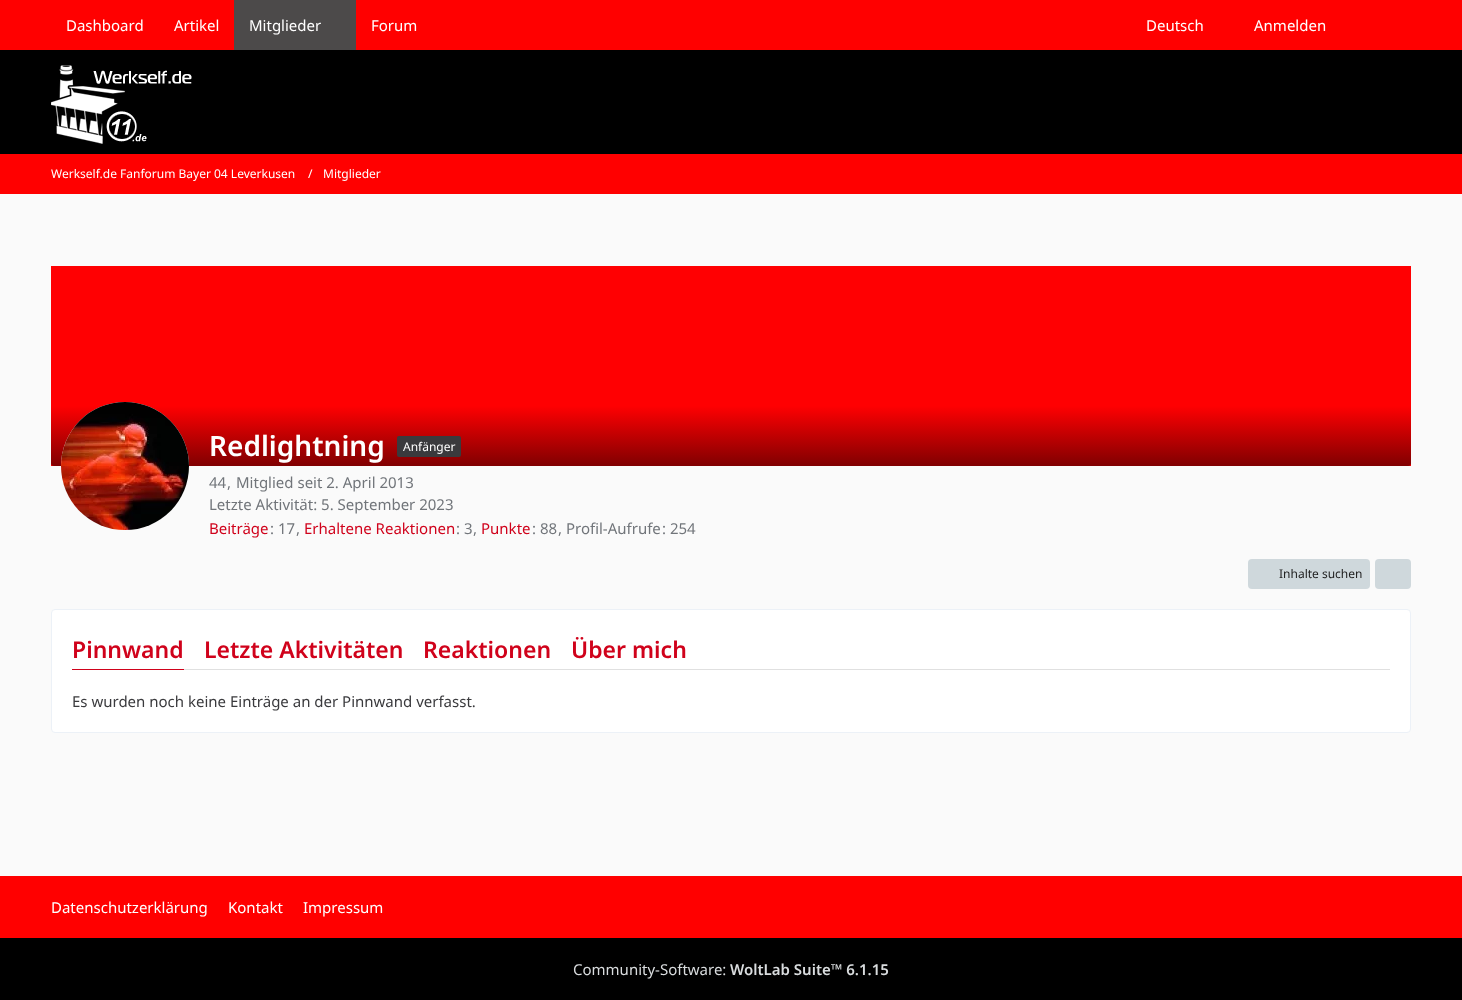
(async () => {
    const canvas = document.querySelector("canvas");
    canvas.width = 1462;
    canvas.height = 1000;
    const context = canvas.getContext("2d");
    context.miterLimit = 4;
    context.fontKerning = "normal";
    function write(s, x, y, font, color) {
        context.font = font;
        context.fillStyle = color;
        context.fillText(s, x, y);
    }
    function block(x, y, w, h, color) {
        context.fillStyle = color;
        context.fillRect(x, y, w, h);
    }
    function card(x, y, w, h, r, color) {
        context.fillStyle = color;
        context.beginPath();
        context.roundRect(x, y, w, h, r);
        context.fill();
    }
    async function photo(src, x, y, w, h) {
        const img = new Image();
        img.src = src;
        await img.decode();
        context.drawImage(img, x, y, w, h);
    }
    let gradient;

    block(0, 0, 1462, 1000, "rgb(250, 250, 250)");
    block(0, 50, 1462, 104, "rgb(0, 0, 0)");
    block(0, 0, 1462, 50, "rgb(255, 0, 0)");
    write("Dashboard", 66, 31, "15px Noto Sans", "rgb(255, 255, 255)");
    write("Artikel", 174, 31, "15px Noto Sans", "rgb(255, 255, 255)");
    block(234, 0, 122, 50, "rgb(76, 74, 74)");
    write("Mitglieder", 249, 31, "15px Noto Sans", "rgb(255, 255, 255)");
    write("Forum", 371, 31, "15px Noto Sans", "rgb(255, 255, 255)");
    write("Deutsch", 1146, 31, "15px Noto Sans", "rgb(255, 255, 255)");
    write("Anmelden", 1254, 31, "15px Noto Sans", "rgb(255, 255, 255)");
    await photo("media/1.png", 51, 65, 141, 79);
    block(0, 154, 1462, 40, "rgb(255, 0, 0)");
    write("Werkself.de Fanforum Bayer 04 Leverkusen", 51, 178, "12px Noto Sans", "rgb(255, 255, 255)");
    write("/", 308, 178, "12px Noto Sans", "rgb(255, 255, 255)");
    write("Mitglieder", 323, 178, "12px Noto Sans", "rgb(255, 255, 255)");
    block(51, 463, 1360, 3, "rgb(255, 0, 2)");
    gradient = context.createLinearGradient(731, 266, 731, 466);
    gradient.addColorStop(0.7, "rgb(255, 0, 2)");
    gradient.addColorStop(1, "rgb(128, 0, 1)");
    context.fillStyle = gradient;
    context.beginPath();
    context.roundRect(51, 266, 1360, 200, [0, 0, 3, 3]);
    context.fill();
    context.fillStyle = "rgb(255, 255, 255)";
    context.beginPath();
    context.arc(125, 466, 64, 0, Math.PI * 2);
    context.fill();
    await photo("media/2.png", 61, 402, 128, 128);
    write("Redlightning", 209, 456, "600 28px Noto Sans", "rgb(255, 255, 255)");
    card(397, 436, 64, 21, 2, "rgb(58, 58, 61)");
    write("Anfänger", 403, 451, "12px Noto Sans", "rgb(255, 255, 255)");
    write("44", 209, 488, "15px Noto Sans", "rgb(113, 117, 122)");
    write(",", 227, 488, "15px Noto Sans", "rgb(113, 117, 122)");
    write("Mitglied seit 2. April 2013", 236, 488, "15px Noto Sans", "rgb(113, 117, 122)");
    write("Letzte Aktivität: 5. September 2023", 209, 510, "15px Noto Sans", "rgb(113, 117, 122)");
    write("Beiträge", 209, 534, "15px Noto Sans", "rgb(208, 2, 27)");
    write(": 17", 270, 534, "15px Noto Sans", "rgb(113, 117, 122)");
    write(",", 296, 534, "15px Noto Sans", "rgb(113, 117, 122)");
    write("Erhaltene Reaktionen", 304, 534, "15px Noto Sans", "rgb(208, 2, 27)");
    write(": 3", 456, 534, "15px Noto Sans", "rgb(113, 117, 122)");
    write(",", 473, 534, "15px Noto Sans", "rgb(113, 117, 122)");
    write("Punkte", 481, 534, "15px Noto Sans", "rgb(208, 2, 27)");
    write(": 88", 532, 534, "15px Noto Sans", "rgb(113, 117, 122)");
    write(", Profil-Aufrufe", 558, 534, "15px Noto Sans", "rgb(113, 117, 122)");
    write(": 254", 662, 534, "15px Noto Sans", "rgb(113, 117, 122)");
    card(1248, 559, 122, 30, 4, "rgb(207, 216, 220)");
    write("Inhalte suchen", 1279, 578, "12px Noto Sans", "rgb(33, 33, 33)");
    card(1375, 559, 36, 30, 4, "rgb(207, 216, 220)");
    context.fillStyle = "rgb(255, 255, 255)";
    context.beginPath();
    context.roundRect(51.5, 609.5, 1359, 123, 3.5);
    context.fill();
    context.strokeStyle = "rgb(236, 241, 247)";
    context.stroke();
    block(184, 669, 1206, 1, "rgb(224, 224, 224)");
    write("Pinnwand", 72, 658, "600 23px Noto Sans", "rgb(208, 2, 27)");
    block(72, 669, 112, 1, "rgb(208, 2, 27)");
    write("Letzte Aktivitäten", 204, 658, "600 23px Noto Sans", "rgb(208, 2, 27)");
    write("Reaktionen", 423, 658, "600 23px Noto Sans", "rgb(208, 2, 27)");
    write("Über mich", 571, 658, "600 23px Noto Sans", "rgb(208, 2, 27)");
    write("Es wurden noch keine Einträge an der Pinnwand verfasst.", 72, 707, "15px Noto Sans", "rgb(58, 58, 61)");
    block(0, 876, 1462, 62, "rgb(255, 0, 0)");
    write("Datenschutzerklärung", 51, 913, "15px Noto Sans", "rgb(255, 255, 255)");
    write("Kontakt", 228, 913, "15px Noto Sans", "rgb(255, 255, 255)");
    write("Impressum", 303, 913, "15px Noto Sans", "rgb(255, 255, 255)");
    block(0, 938, 1462, 62, "rgb(0, 0, 0)");
    write("Community-Software:", 573, 975, "15px Noto Sans", "rgb(217, 220, 222)");
    write("WoltLab Suite™ 6.1.15", 730, 975, "600 15px Noto Sans", "rgb(217, 220, 222)");
})();
